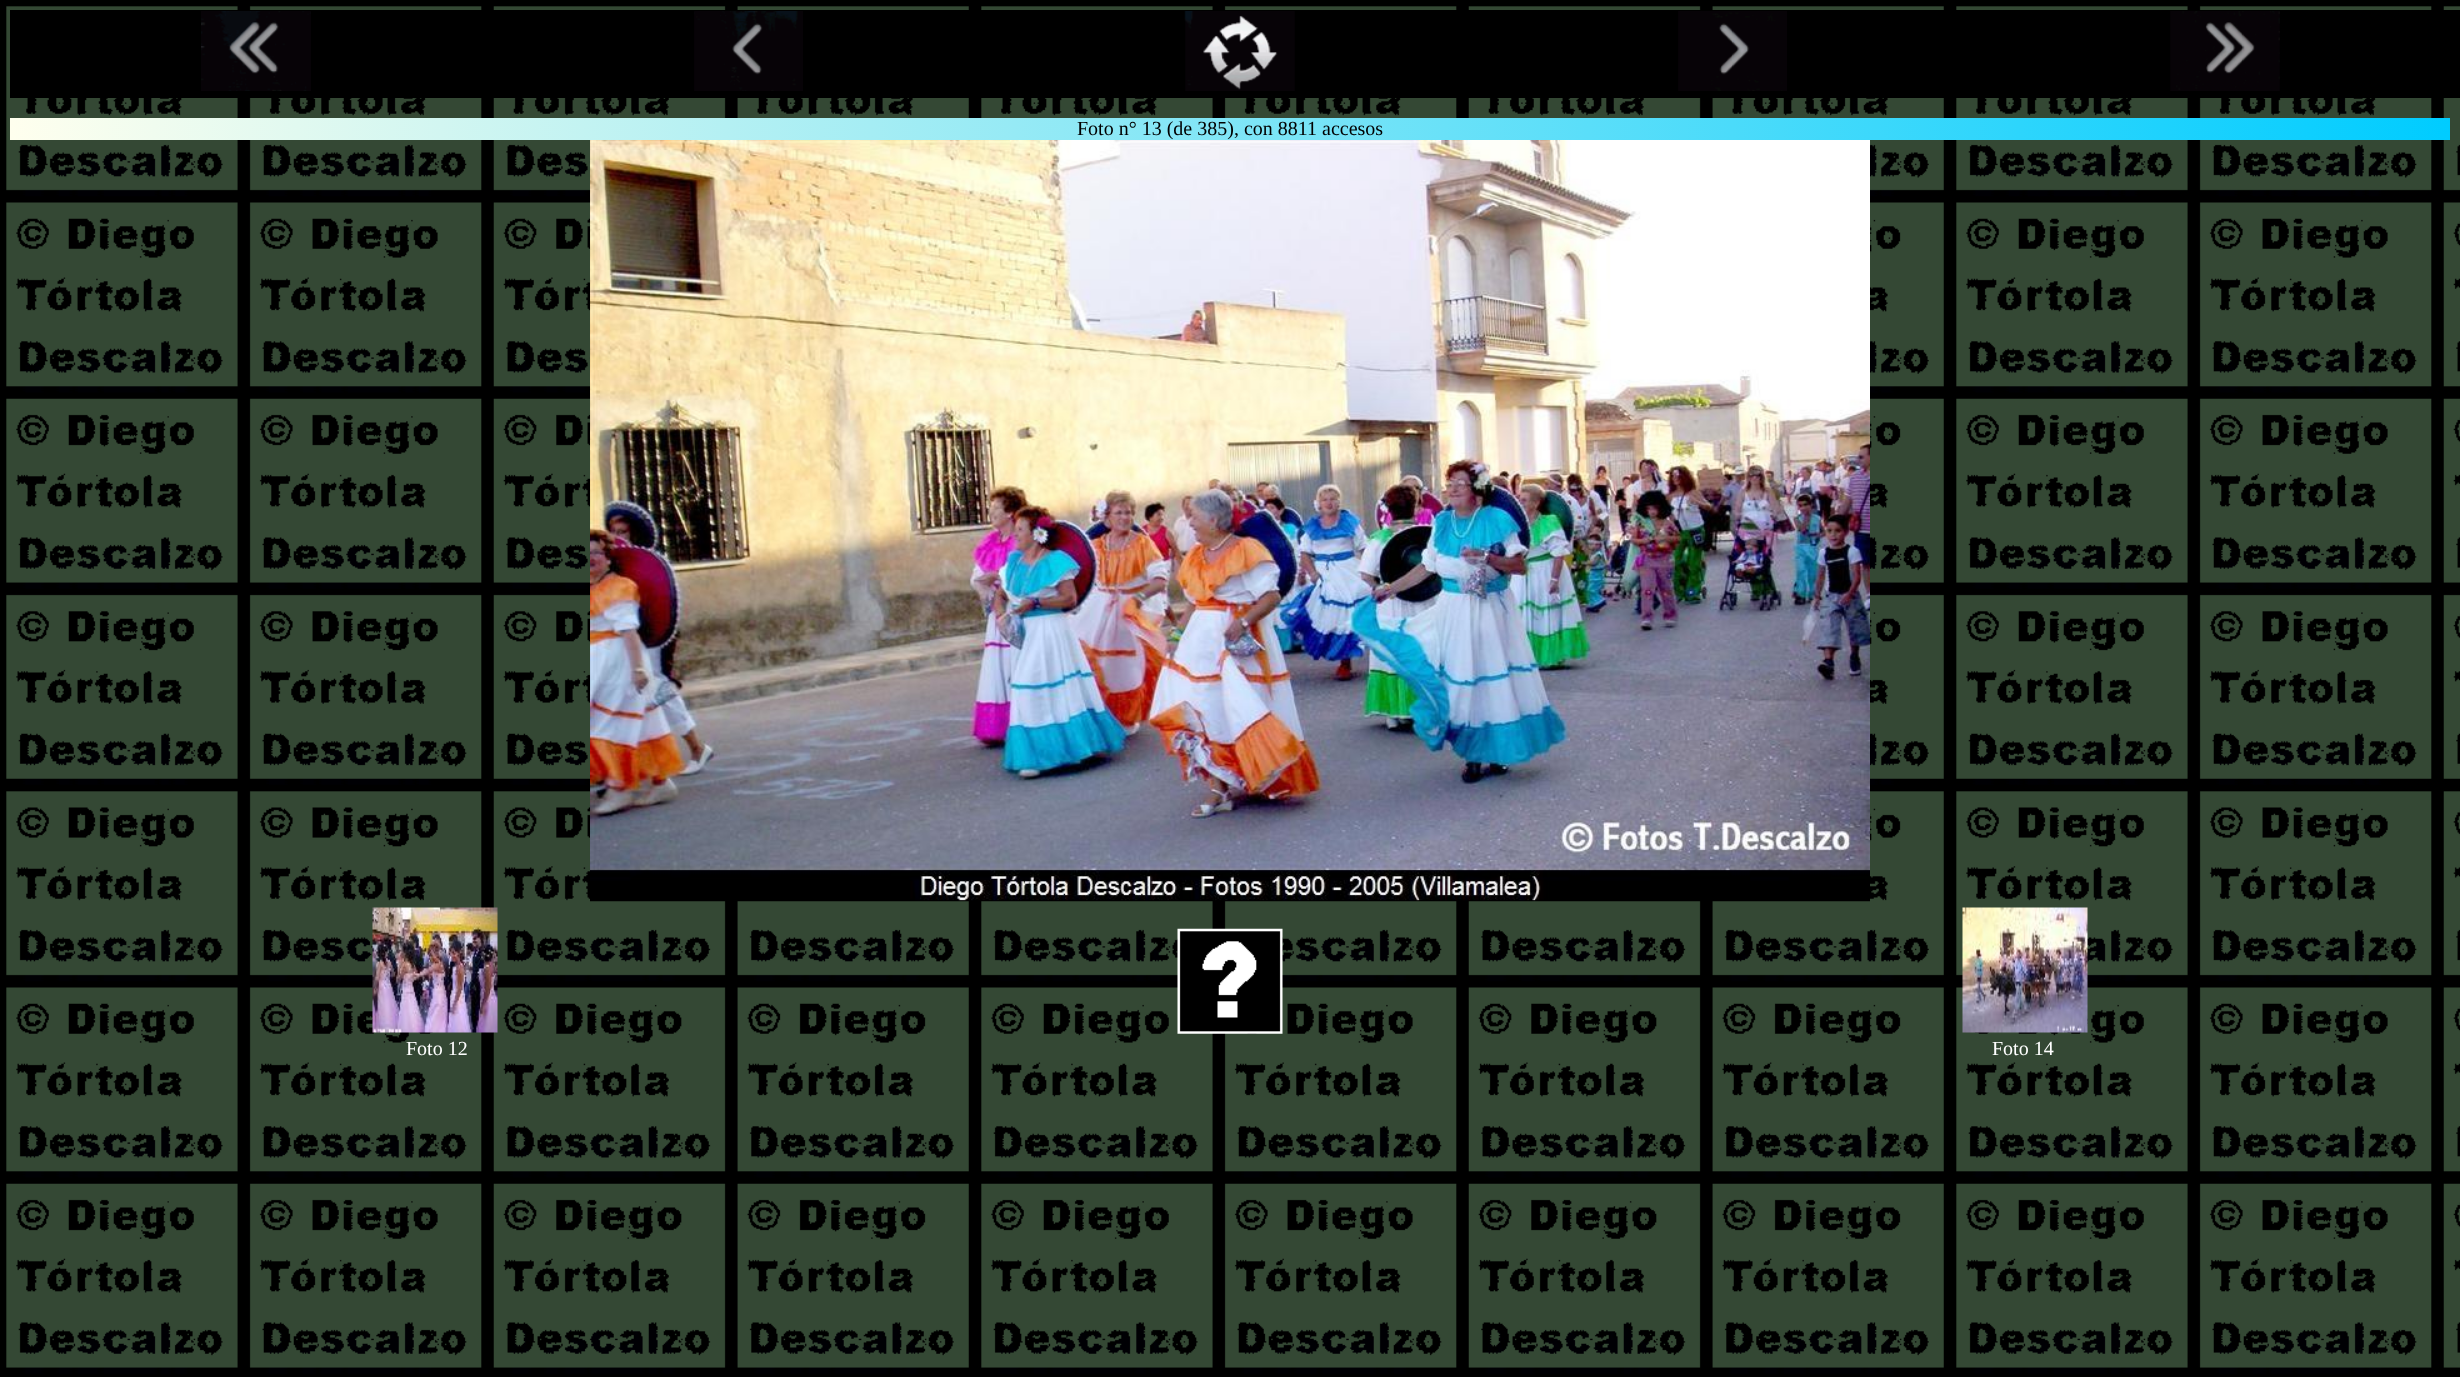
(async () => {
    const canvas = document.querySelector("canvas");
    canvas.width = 2460;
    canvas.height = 1377;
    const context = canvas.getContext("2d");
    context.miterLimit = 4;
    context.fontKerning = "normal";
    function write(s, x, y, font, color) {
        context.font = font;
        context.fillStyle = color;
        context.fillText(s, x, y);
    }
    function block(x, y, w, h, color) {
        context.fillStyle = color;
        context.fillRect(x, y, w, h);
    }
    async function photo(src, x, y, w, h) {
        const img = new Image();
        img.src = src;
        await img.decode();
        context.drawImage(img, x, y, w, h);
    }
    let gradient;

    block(0, 0, 2460, 1377, "rgb(255, 255, 255)");
    await photo("media/1.png", 0, 0, 2460, 1377);
    block(10, 10, 2450, 88, "rgb(0, 0, 0)");
    await photo("media/2.png", 201, 11, 110, 80);
    await photo("media/3.png", 694, 11, 109, 80);
    await photo("media/4.png", 1184, 11, 111, 80);
    await photo("media/5.png", 1678, 11, 109, 80);
    await photo("media/6.png", 2170, 11, 110, 80);
    gradient = context.createLinearGradient(10, 129, 2450, 129);
    gradient.addColorStop(0, "rgb(255, 255, 238)");
    gradient.addColorStop(1, "rgb(0, 204, 255)");
    context.fillStyle = gradient;
    context.fillRect(10, 118, 2440, 22);
    write("Foto n° 13 (de 385), con 8811 accesos", 1077, 135, "20px Liberation Serif", "rgb(0, 0, 0)");
    await photo("media/7.png", 590, 140, 1280, 762);
    await photo("media/8.png", 1177, 928, 106, 106);
    await photo("media/9.png", 372, 907, 126, 126);
    write("Foto 12", 406, 1055, "20px Liberation Serif", "rgb(255, 255, 255)");
    await photo("media/10.png", 1962, 907, 126, 126);
    write("Foto 14", 1992, 1055, "20px Liberation Serif", "rgb(255, 255, 255)");
})();
